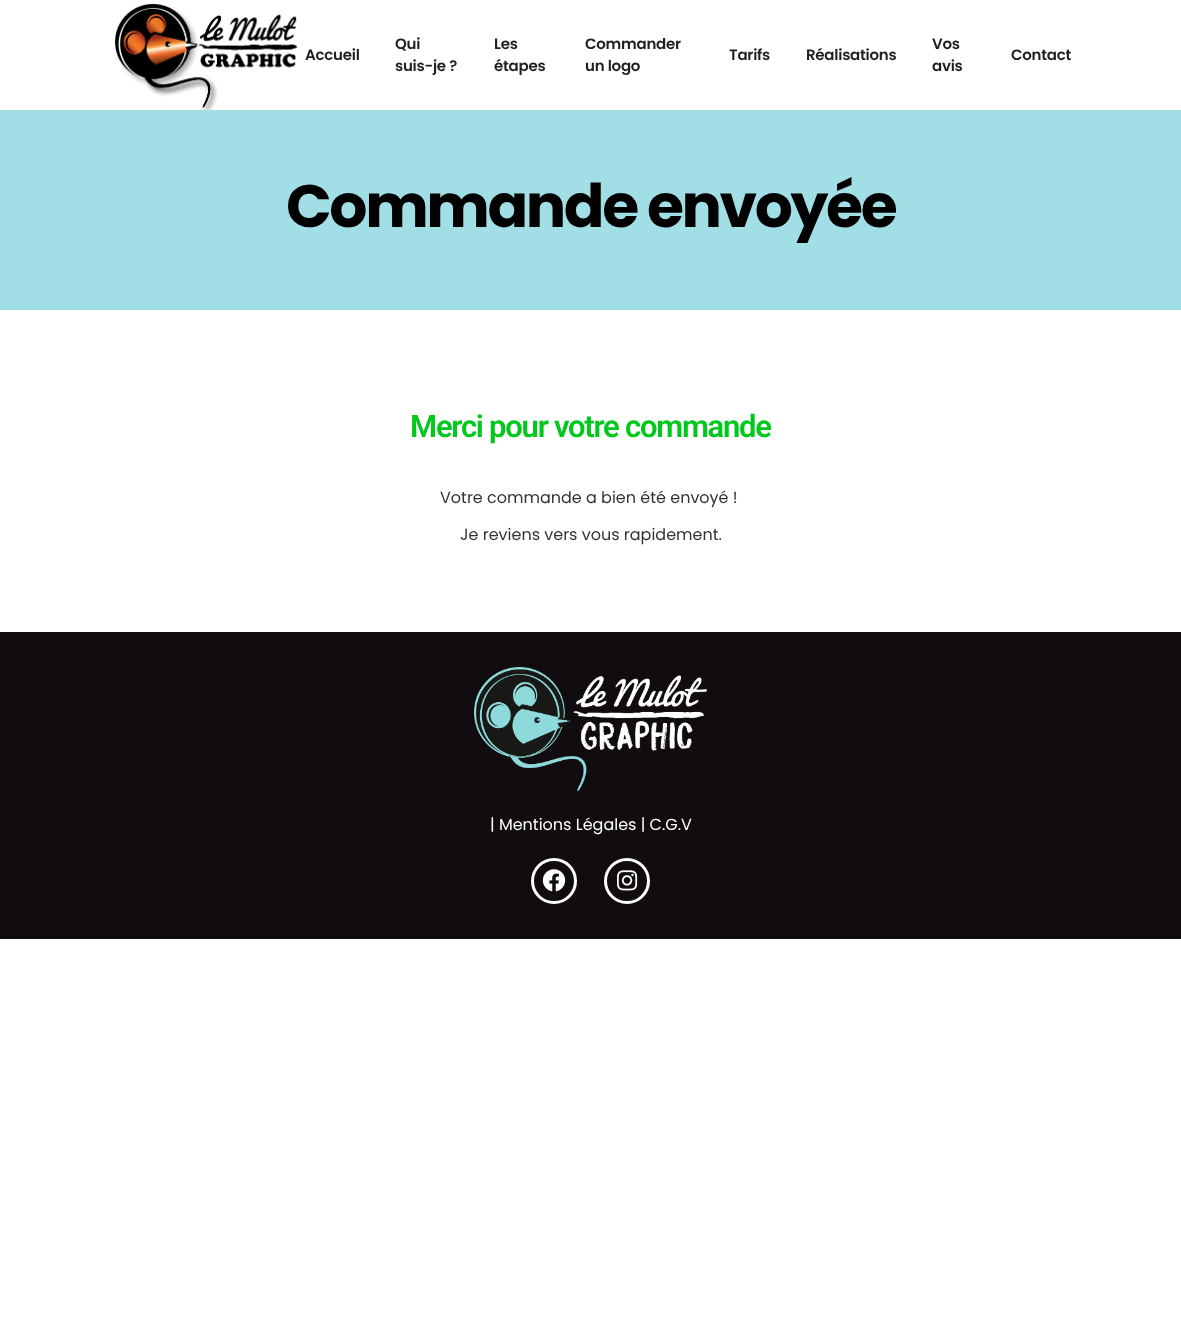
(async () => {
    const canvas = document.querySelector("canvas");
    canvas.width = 1181;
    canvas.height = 1340;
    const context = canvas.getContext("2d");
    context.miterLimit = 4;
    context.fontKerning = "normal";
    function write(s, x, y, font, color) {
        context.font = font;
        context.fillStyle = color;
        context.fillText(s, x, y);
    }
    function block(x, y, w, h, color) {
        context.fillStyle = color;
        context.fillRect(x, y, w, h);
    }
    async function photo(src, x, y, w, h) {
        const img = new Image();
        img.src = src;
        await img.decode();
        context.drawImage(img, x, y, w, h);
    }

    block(0, 0, 1181, 1340, "rgb(255, 255, 255)");
    await photo("media/1.png", 115, 3, 183, 107);
    context.letterSpacing = "-0.25px";
    write("Accueil", 305, 60, "600 15px Poppins", "rgb(31, 31, 31)");
    write("Qui", 395, 49, "600 15px Poppins", "rgb(31, 31, 31)");
    write("suis-je ?", 395, 71, "600 15px Poppins", "rgb(31, 31, 31)");
    write("Les", 494, 49, "600 15px Poppins", "rgb(31, 31, 31)");
    write("étapes", 494, 71, "600 15px Poppins", "rgb(31, 31, 31)");
    write("Commander", 585, 49, "600 15px Poppins", "rgb(31, 31, 31)");
    write("un logo", 585, 71, "600 15px Poppins", "rgb(31, 31, 31)");
    write("Tarifs", 729, 60, "600 15px Poppins", "rgb(31, 31, 31)");
    write("Réalisations", 806, 60, "600 15px Poppins", "rgb(31, 31, 31)");
    write("Vos", 932, 49, "600 15px Poppins", "rgb(31, 31, 31)");
    write("avis", 932, 71, "600 15px Poppins", "rgb(31, 31, 31)");
    write("Contact", 1011, 60, "600 15px Poppins", "rgb(31, 31, 31)");
    block(0, 110, 1181, 200, "rgb(162, 222, 230)");
    context.letterSpacing = "-2.4px";
    write("Commande envoyée", 286, 227, "bold 60px Poppins", "rgb(0, 0, 0)");
    context.letterSpacing = "-1.25px";
    write("Merci pour votre commande", 410, 437, "600 31px Roboto", "rgb(0, 200, 28)");
    context.letterSpacing = "0px";
    write("Votre commande a bien été envoyé !", 440, 503, "16px Poppins", "rgb(51, 51, 51)");
    write("Je reviens vers vous rapidement.", 460, 540, "16px Poppins", "rgb(51, 51, 51)");
    block(0, 632, 1181, 307, "rgb(16, 12, 15)");
    await photo("media/2.png", 474, 667, 233, 124);
    write("| Mentions Légales | C.G.V", 490, 830, "16px Poppins", "rgb(255, 255, 255)");
    context.beginPath();
    context.arc(554, 881, 21.5, 0, Math.PI * 2);
    context.strokeStyle = "rgb(255, 255, 255)";
    context.lineWidth = 3;
    context.stroke();
    await photo("media/3.png", 542, 869, 24, 23);
    context.beginPath();
    context.arc(627, 881, 21.5, 0, Math.PI * 2);
    context.stroke();
    await photo("media/4.png", 617, 870, 21, 21);
})();
